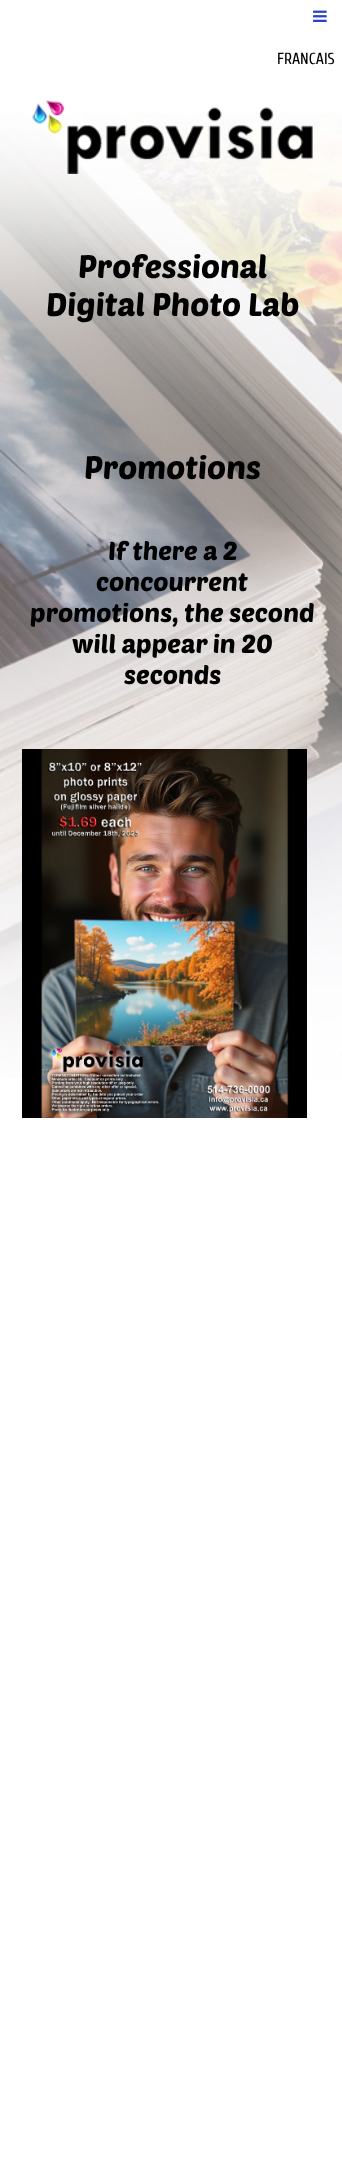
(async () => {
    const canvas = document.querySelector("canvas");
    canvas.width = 342;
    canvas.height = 2170;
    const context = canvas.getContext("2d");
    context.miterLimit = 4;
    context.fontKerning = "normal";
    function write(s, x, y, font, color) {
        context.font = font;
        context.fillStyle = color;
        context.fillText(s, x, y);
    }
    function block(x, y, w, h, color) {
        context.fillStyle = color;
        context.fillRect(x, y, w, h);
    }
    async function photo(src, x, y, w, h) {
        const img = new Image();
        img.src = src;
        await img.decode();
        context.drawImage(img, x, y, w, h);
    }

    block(0, 0, 342, 2170, "rgb(255, 255, 255)");
    await photo("media/1.png", 313, 10, 14, 12);
    write("FRANCAIS", 277, 64, "16px Cuprum", "rgb(0, 0, 0)");
    await photo("media/2.png", 0, 113, 342, 965);
    await photo("media/3.png", 32, 100, 281, 74);
    write("Professional", 78, 278, "32px PoetsenOne", "rgb(0, 0, 0)");
    write("Digital Photo Lab", 46, 316, "32px PoetsenOne", "rgb(0, 0, 0)");
    write("Promotions", 84, 479, "32px PoetsenOne", "rgb(0, 0, 0)");
    write("If there a 2", 108, 560, "25.6px PoetsenOne", "rgb(0, 0, 0)");
    write("concourrent", 96, 591, "25.6px PoetsenOne", "rgb(0, 0, 0)");
    write("promotions, the second", 30, 622, "25.6px PoetsenOne", "rgb(0, 0, 0)");
    write("will appear in 20", 72, 653, "25.6px PoetsenOne", "rgb(0, 0, 0)");
    write("seconds", 124, 684, "25.6px PoetsenOne", "rgb(0, 0, 0)");
    await photo("media/4.png", 22, 749, 285, 369);
})();
